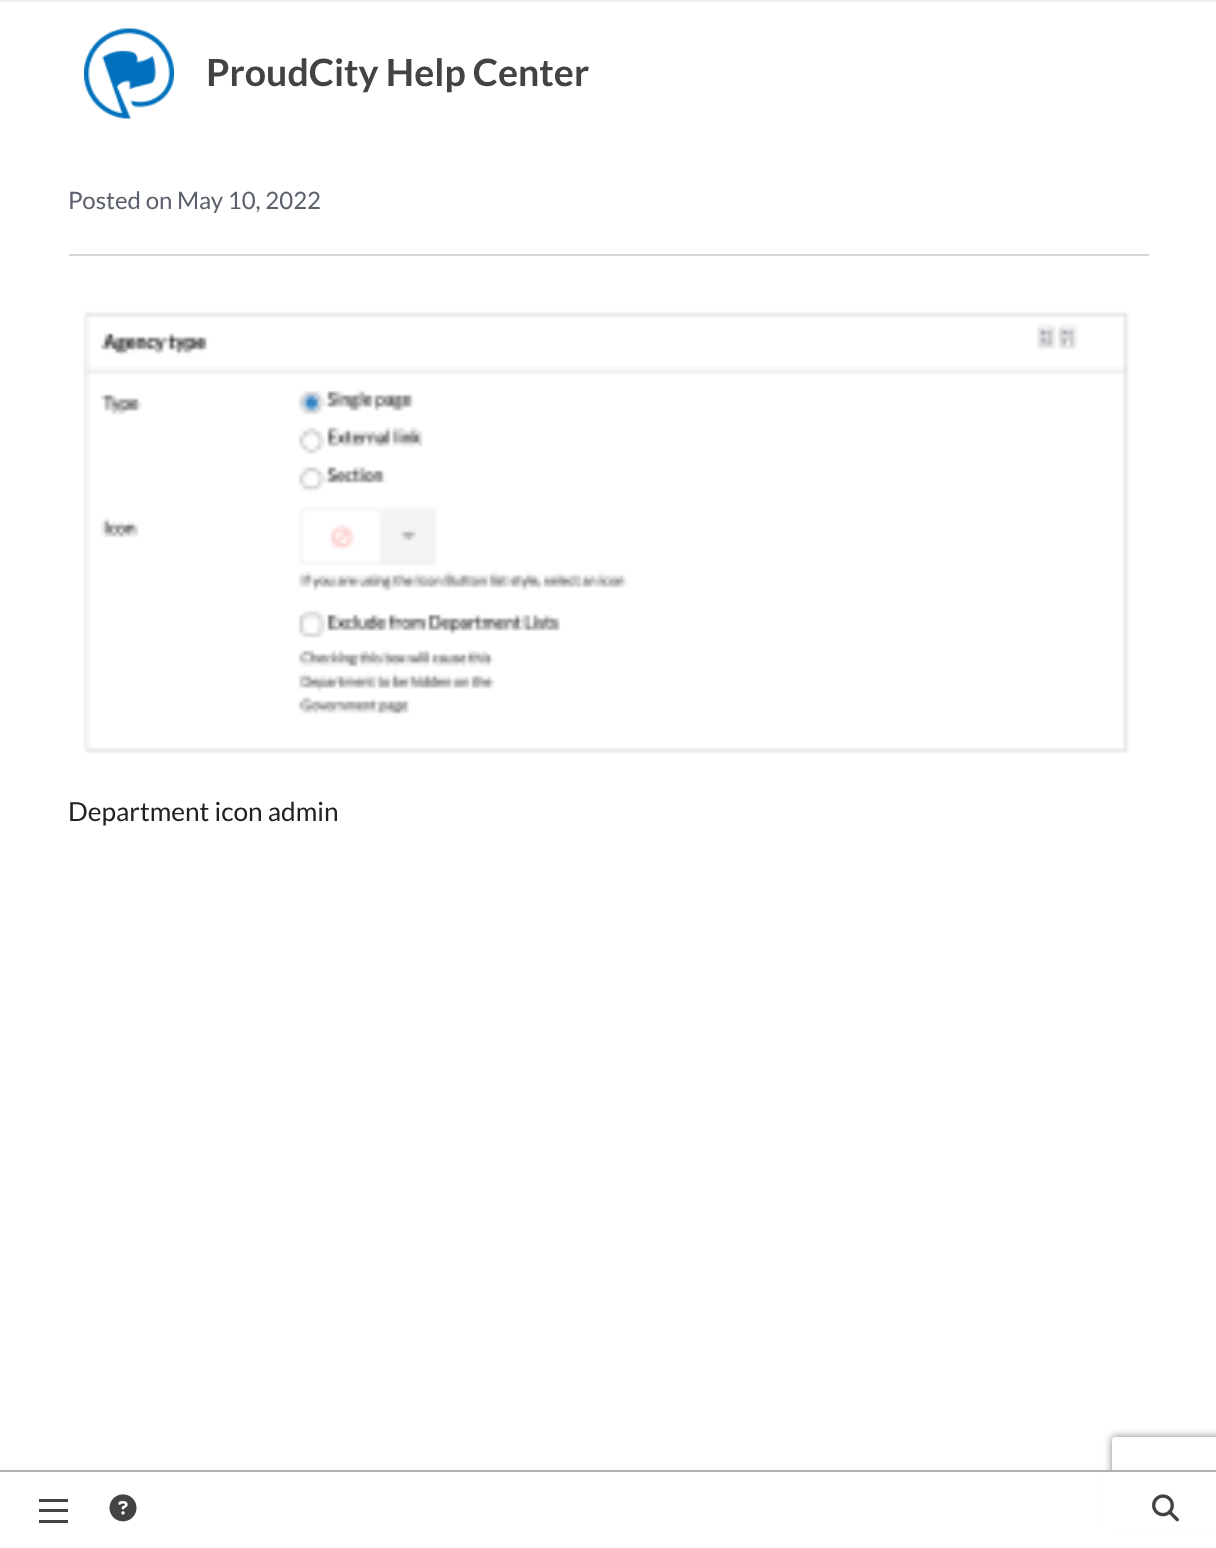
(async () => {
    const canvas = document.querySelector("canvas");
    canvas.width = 1216;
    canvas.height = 1548;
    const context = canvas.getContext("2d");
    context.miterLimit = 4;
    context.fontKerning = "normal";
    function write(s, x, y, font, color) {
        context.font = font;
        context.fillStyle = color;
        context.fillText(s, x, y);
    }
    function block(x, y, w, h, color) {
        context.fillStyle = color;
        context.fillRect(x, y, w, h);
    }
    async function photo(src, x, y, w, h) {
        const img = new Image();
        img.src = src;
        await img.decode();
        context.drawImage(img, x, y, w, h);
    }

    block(0, 0, 1216, 1548, "rgb(255, 255, 255)");
    block(0, 0, 1216, 2, "rgb(238, 238, 238)");
    context.save();
    context.beginPath();
    context.moveTo(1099, 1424);
    context.lineTo(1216, 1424);
    context.lineTo(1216, 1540);
    context.lineTo(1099, 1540);
    context.closePath();
    context.moveTo(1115, 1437);
    context.lineTo(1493, 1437);
    context.bezierCurveTo(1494.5, 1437, 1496, 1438.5, 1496, 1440);
    context.lineTo(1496, 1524);
    context.bezierCurveTo(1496, 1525.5, 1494.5, 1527, 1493, 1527);
    context.lineTo(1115, 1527);
    context.bezierCurveTo(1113.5, 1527, 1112, 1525.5, 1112, 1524);
    context.lineTo(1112, 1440);
    context.bezierCurveTo(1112, 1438.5, 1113.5, 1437, 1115, 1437);
    context.closePath();
    context.clip("evenodd");
    context.fillStyle = "rgb(128, 128, 128)";
    context.filter = "blur(4px)";
    context.beginPath();
    context.roundRect(1112, 1437, 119, 90, 3);
    context.fill();
    context.filter = "none";
    context.restore();
    block(1104, 1472, 112, 63, "rgb(255, 255, 255)");
    block(0, 1470, 1216, 2, "rgb(174, 176, 181)");
    await photo("media/1.png", 109, 1494, 28, 28);
    await photo("media/2.png", 1152, 1494, 27, 28);
    block(39, 1509, 29, 3, "rgb(67, 67, 67)");
    block(39, 1499, 29, 3, "rgb(67, 67, 67)");
    block(39, 1520, 29, 3, "rgb(67, 67, 67)");
    await photo("media/3.png", 84, 28, 90, 91);
    write("ProudCity Help Center", 206, 86, "bold 37.5px Lato", "rgb(67, 67, 67)");
    write("Posted on May 10, 2022", 68, 209, "24px Lato", "rgb(91, 97, 107)");
    block(69, 254, 1080, 2, "rgb(214, 215, 217)");
    await photo("media/4.png", 83, 311, 1046, 443);
    write("Department icon admin", 68, 821, "26.25px Lato", "rgb(33, 33, 33)");
})();
